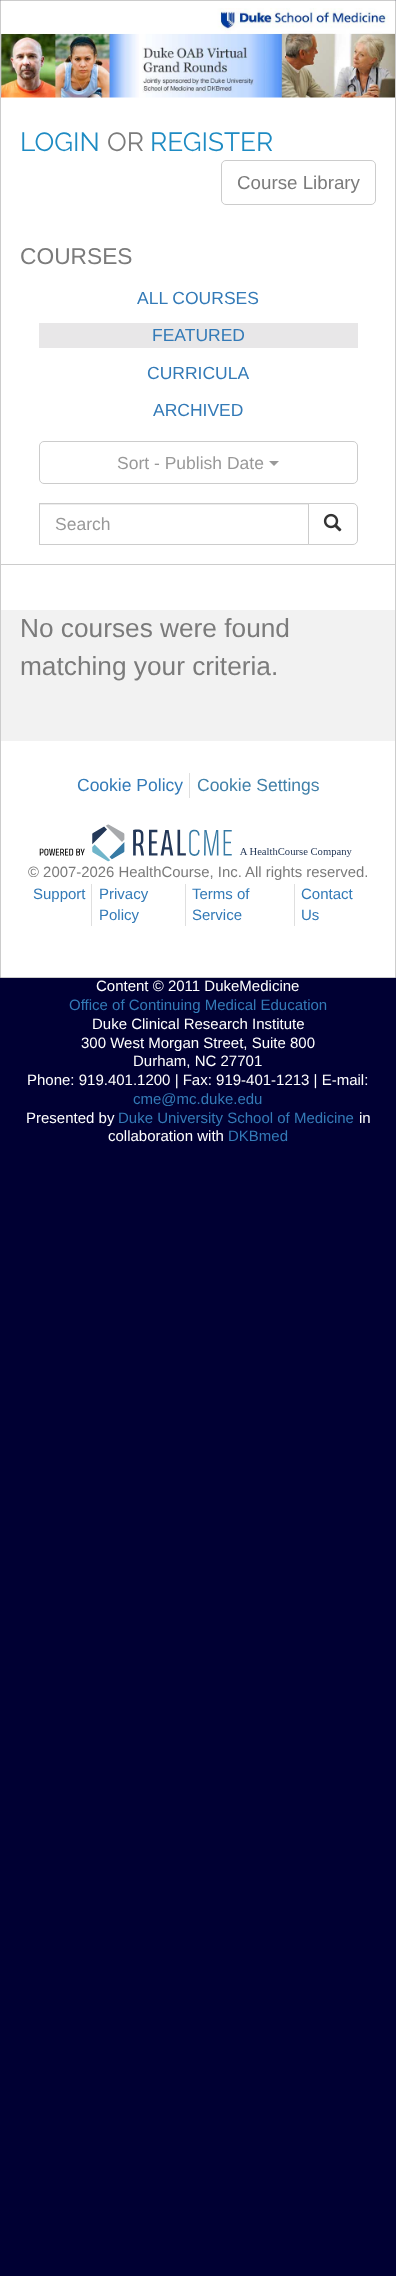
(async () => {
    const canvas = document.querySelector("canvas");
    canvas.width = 396;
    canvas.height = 2276;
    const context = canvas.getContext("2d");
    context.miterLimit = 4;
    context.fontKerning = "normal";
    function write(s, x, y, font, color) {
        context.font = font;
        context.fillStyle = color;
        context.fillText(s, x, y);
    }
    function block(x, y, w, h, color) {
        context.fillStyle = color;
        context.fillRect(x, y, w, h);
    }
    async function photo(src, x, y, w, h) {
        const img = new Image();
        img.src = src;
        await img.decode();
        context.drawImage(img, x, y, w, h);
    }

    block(0, 0, 396, 2276, "rgb(0, 0, 51)");
    context.fillStyle = "rgb(255, 255, 255)";
    context.beginPath();
    context.rect(0.5, 0.5, 395, 977);
    context.fill();
    context.strokeStyle = "rgb(204, 204, 204)";
    context.stroke();
    await photo("media/1.png", 1, 8, 394, 90);
    write("LOGIN", 20, 151, "26.25px Raleway", "rgb(30, 139, 195)");
    write("OR", 107, 151, "26.25px Raleway", "rgb(123, 123, 123)");
    write("REGISTER", 150, 151, "26.25px Raleway", "rgb(30, 139, 195)");
    context.beginPath();
    context.roundRect(221.5, 160.5, 154, 44, 4.5);
    context.stroke();
    write("Course Library", 237, 189, "18.75px Liberation Sans", "rgb(123, 123, 123)");
    write("COURSES", 20, 264, "22.75px Liberation Sans", "rgb(123, 123, 123)");
    block(1, 564, 394, 1, "rgb(204, 204, 204)");
    write("ALL COURSES", 137, 304, "17.5px Liberation Sans", "rgb(51, 122, 183)");
    block(39, 323, 319, 25, "rgb(232, 231, 232)");
    write("FEATURED", 152, 341, "17.5px Liberation Sans", "rgb(51, 122, 183)");
    write("CURRICULA", 147, 379, "17.5px Liberation Sans", "rgb(51, 122, 183)");
    write("ARCHIVED", 153, 416, "17.5px Liberation Sans", "rgb(51, 122, 183)");
    context.beginPath();
    context.roundRect(39.5, 441.5, 318, 42, 4.5);
    context.stroke();
    write("Sort - Publish Date", 117, 469, "17.5px Liberation Sans", "rgb(153, 153, 153)");
    context.beginPath();
    context.moveTo(269, 461);
    context.lineTo(279, 461);
    context.lineTo(274, 466);
    context.closePath();
    context.fill();
    block(40, 504, 268, 1, "rgb(236, 236, 236)");
    context.strokeRect(39.5, 503.5, 269, 41);
    write("Search", 55, 530, "17.5px Liberation Sans", "rgb(153, 153, 153)");
    context.fillStyle = "rgb(255, 255, 255)";
    context.beginPath();
    context.roundRect(308.5, 503.5, 49, 41, [0, 4.5, 4.5, 0]);
    context.fill();
    context.stroke();
    await photo("media/2.png", 323, 513, 19, 19);
    block(1, 610, 394, 131, "rgb(242, 242, 242)");
    write("No courses were found", 20, 637, "26.25px Liberation Sans", "rgb(123, 123, 123)");
    write("matching your criteria.", 20, 675, "26.25px Liberation Sans", "rgb(123, 123, 123)");
    block(189, 773, 1, 25, "rgb(223, 223, 223)");
    write("Cookie Policy", 77, 791, "17.5px Liberation Sans", "rgb(51, 122, 183)");
    write("Cookie Settings", 197, 791, "17.5px Liberation Sans", "rgb(66, 129, 169)");
    await photo("media/3.png", 39, 824, 313, 38);
    write("© 2007-2026 HealthCourse, Inc. All rights reserved.", 28, 877, "14.9px Liberation Sans", "rgb(123, 123, 123)");
    block(91, 884, 1, 42, "rgb(223, 223, 223)");
    write("Support", 33, 899, "15px Liberation Sans", "rgb(51, 122, 183)");
    block(185, 884, 1, 42, "rgb(223, 223, 223)");
    write("Privacy", 99, 899, "15px Liberation Sans", "rgb(51, 122, 183)");
    write("Policy", 99, 920, "15px Liberation Sans", "rgb(51, 122, 183)");
    block(294, 884, 1, 42, "rgb(223, 223, 223)");
    write("Terms of", 192, 899, "15px Liberation Sans", "rgb(51, 122, 183)");
    write("Service", 192, 920, "15px Liberation Sans", "rgb(51, 122, 183)");
    write("Contact", 301, 899, "15px Liberation Sans", "rgb(51, 122, 183)");
    write("Us", 301, 920, "15px Liberation Sans", "rgb(51, 122, 183)");
    write("Content © 2011 DukeMedicine", 96, 991, "15px Liberation Sans", "rgb(255, 255, 255)");
    write("Office of Continuing Medical Education", 69, 1010, "15px Liberation Sans", "rgb(51, 122, 183)");
    write("Duke Clinical Research Institute", 92, 1029, "15px Liberation Sans", "rgb(255, 255, 255)");
    write("300 West Morgan Street, Suite 800", 81, 1048, "15px Liberation Sans", "rgb(255, 255, 255)");
    write("Durham, NC 27701", 133, 1066, "15px Liberation Sans", "rgb(255, 255, 255)");
    write("Phone: 919.401.1200 | Fax: 919-401-1213 | E-mail:", 27, 1085, "15px Liberation Sans", "rgb(255, 255, 255)");
    write("cme@mc.duke.edu", 133, 1104, "15px Liberation Sans", "rgb(51, 122, 183)");
    write("Presented by", 26, 1123, "15px Liberation Sans", "rgb(255, 255, 255)");
    write("Duke University School of Medicine", 118, 1123, "15px Liberation Sans", "rgb(51, 122, 183)");
    write("in", 359, 1123, "15px Liberation Sans", "rgb(255, 255, 255)");
    write("collaboration with", 108, 1141, "15px Liberation Sans", "rgb(255, 255, 255)");
    write("DKBmed", 228, 1141, "15px Liberation Sans", "rgb(51, 122, 183)");
})();
